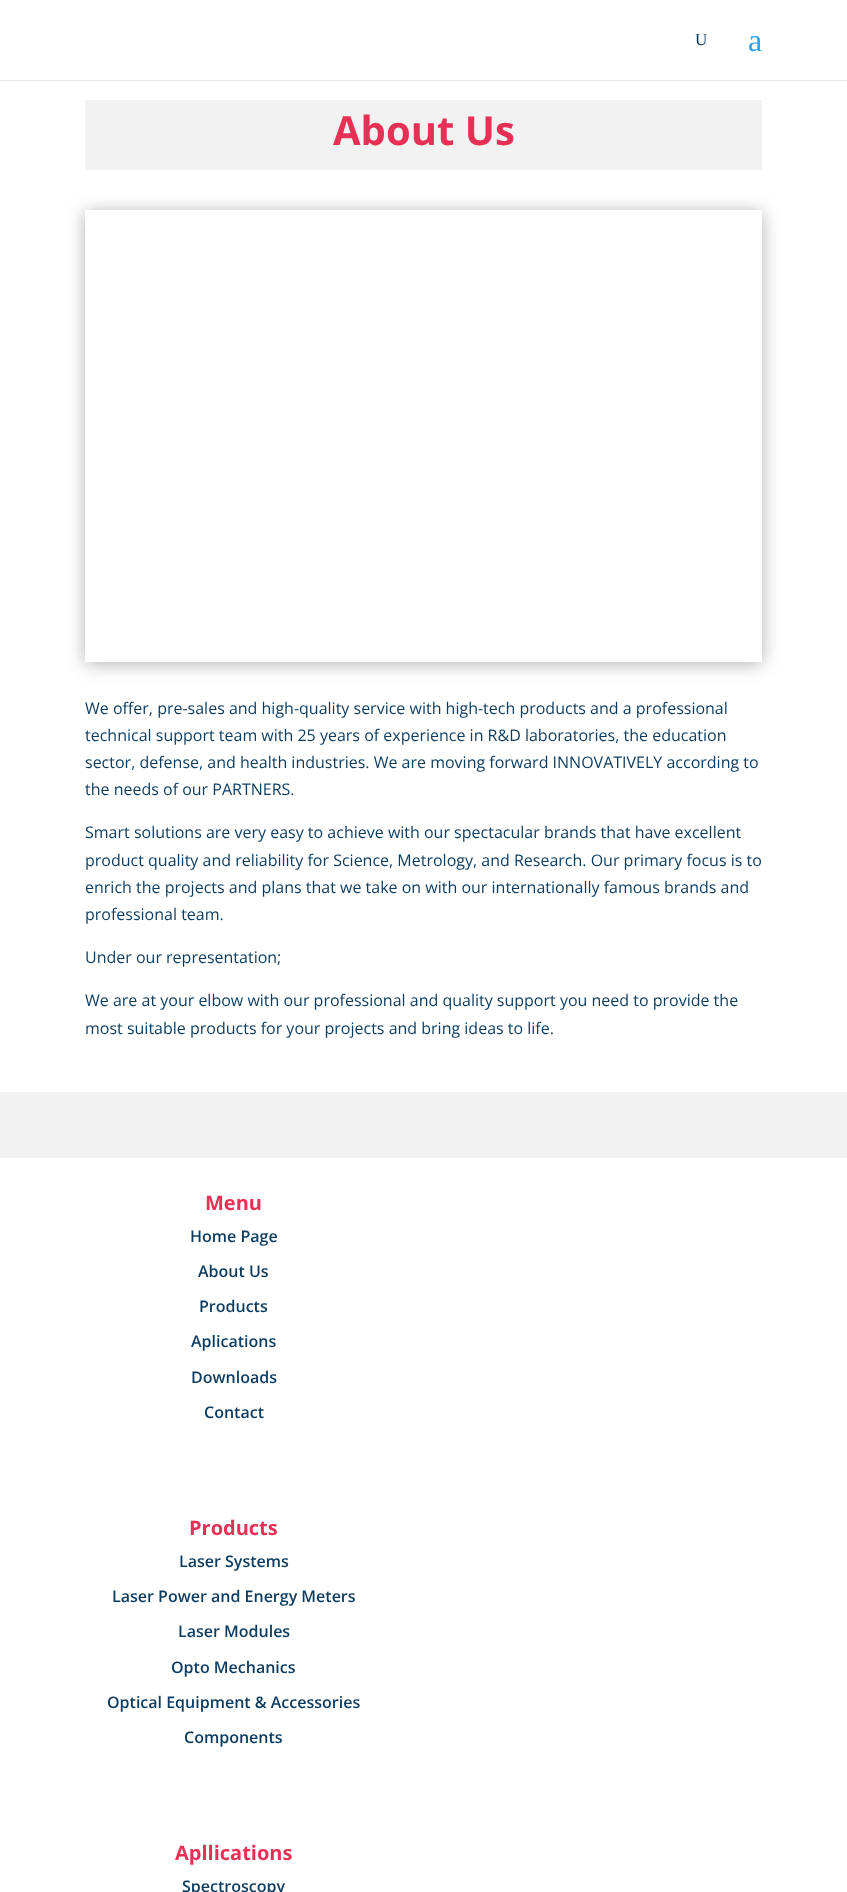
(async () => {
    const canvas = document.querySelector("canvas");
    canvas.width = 847;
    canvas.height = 1892;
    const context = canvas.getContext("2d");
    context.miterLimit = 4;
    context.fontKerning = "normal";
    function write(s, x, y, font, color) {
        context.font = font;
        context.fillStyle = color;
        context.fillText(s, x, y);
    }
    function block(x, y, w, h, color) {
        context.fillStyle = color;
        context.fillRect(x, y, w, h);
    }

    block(0, 0, 847, 1892, "rgb(255, 255, 255)");
    block(0, 80, 847, 1, "rgb(230, 230, 230)");
    write("U", 695, 45, "17px Liberation Serif", "rgb(11, 59, 95)");
    write("a", 748, 51, "32px Liberation Serif", "rgb(46, 163, 242)");
    block(85, 100, 677, 70, "rgb(242, 242, 242)");
    write("About Us", 333, 145, "bold 40px Open Sans", "rgb(231, 48, 86)");
    context.save();
    context.beginPath();
    context.moveTo(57, 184);
    context.lineTo(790, 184);
    context.lineTo(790, 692);
    context.lineTo(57, 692);
    context.closePath();
    context.moveTo(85, 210);
    context.lineTo(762, 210);
    context.lineTo(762, 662);
    context.lineTo(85, 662);
    context.closePath();
    context.clip("evenodd");
    context.fillStyle = "rgba(0, 0, 0, 0.3)";
    context.filter = "blur(9px)";
    context.beginPath();
    context.rect(85, 212, 677, 452);
    context.fill();
    context.filter = "none";
    context.restore();
    write("We offer, pre-sales and high-quality service with high-tech products and a professional", 85, 714, "16px Open Sans", "rgb(11, 59, 95)");
    write("technical support team with 25 years of experience in R&D laboratories, the education", 85, 741, "16px Open Sans", "rgb(11, 59, 95)");
    write("sector, defense, and health industries. We are moving forward INNOVATIVELY according to", 85, 768, "16px Open Sans", "rgb(11, 59, 95)");
    write("the needs of our PARTNERS.", 85, 795, "16px Open Sans", "rgb(11, 59, 95)");
    write("Smart solutions are very easy to achieve with our spectacular brands that have excellent", 85, 838, "16px Open Sans", "rgb(11, 59, 95)");
    write("product quality and reliability for Science, Metrology, and Research. Our primary focus is to", 85, 866, "16px Open Sans", "rgb(11, 59, 95)");
    write("enrich the projects and plans that we take on with our internationally famous brands and", 85, 893, "16px Open Sans", "rgb(11, 59, 95)");
    write("professional team.", 85, 920, "16px Open Sans", "rgb(11, 59, 95)");
    write("Under our representation;", 85, 963, "16px Open Sans", "rgb(11, 59, 95)");
    write("We are at your elbow with our professional and quality support you need to provide the", 85, 1006, "16px Open Sans", "rgb(11, 59, 95)");
    write("most suitable products for your projects and bring ideas to life.", 85, 1034, "16px Open Sans", "rgb(11, 59, 95)");
    block(0, 1092, 847, 66, "rgb(242, 242, 242)");
    write("Menu", 205, 1210, "bold 20px Open Sans", "rgb(231, 48, 86)");
    write("Home Page", 190, 1242, "600 16px Open Sans", "rgb(11, 59, 95)");
    write("About Us", 198, 1277, "600 16px Open Sans", "rgb(11, 59, 95)");
    write("Products", 199, 1312, "600 16px Open Sans", "rgb(11, 59, 95)");
    write("Aplications", 191, 1347, "600 16px Open Sans", "rgb(11, 59, 95)");
    write("Downloads", 191, 1383, "600 16px Open Sans", "rgb(11, 59, 95)");
    write("Contact", 204, 1418, "600 16px Open Sans", "rgb(11, 59, 95)");
    write("Products", 189, 1535, "bold 20px Open Sans", "rgb(231, 48, 86)");
    write("Laser Systems", 179, 1567, "600 16px Open Sans", "rgb(11, 59, 95)");
    write("Laser Power and Energy Meters", 112, 1602, "600 16px Open Sans", "rgb(11, 59, 95)");
    write("Laser Modules", 178, 1637, "600 16px Open Sans", "rgb(11, 59, 95)");
    write("Opto Mechanics", 171, 1673, "600 16px Open Sans", "rgb(11, 59, 95)");
    write("Optical Equipment & Accessories", 107, 1708, "600 16px Open Sans", "rgb(11, 59, 95)");
    write("Components", 184, 1743, "600 16px Open Sans", "rgb(11, 59, 95)");
    write("Apllications", 175, 1860, "bold 20px Open Sans", "rgb(231, 48, 86)");
    write("Spectroscopy", 182, 1892, "600 16px Open Sans", "rgb(11, 59, 95)");
})();
